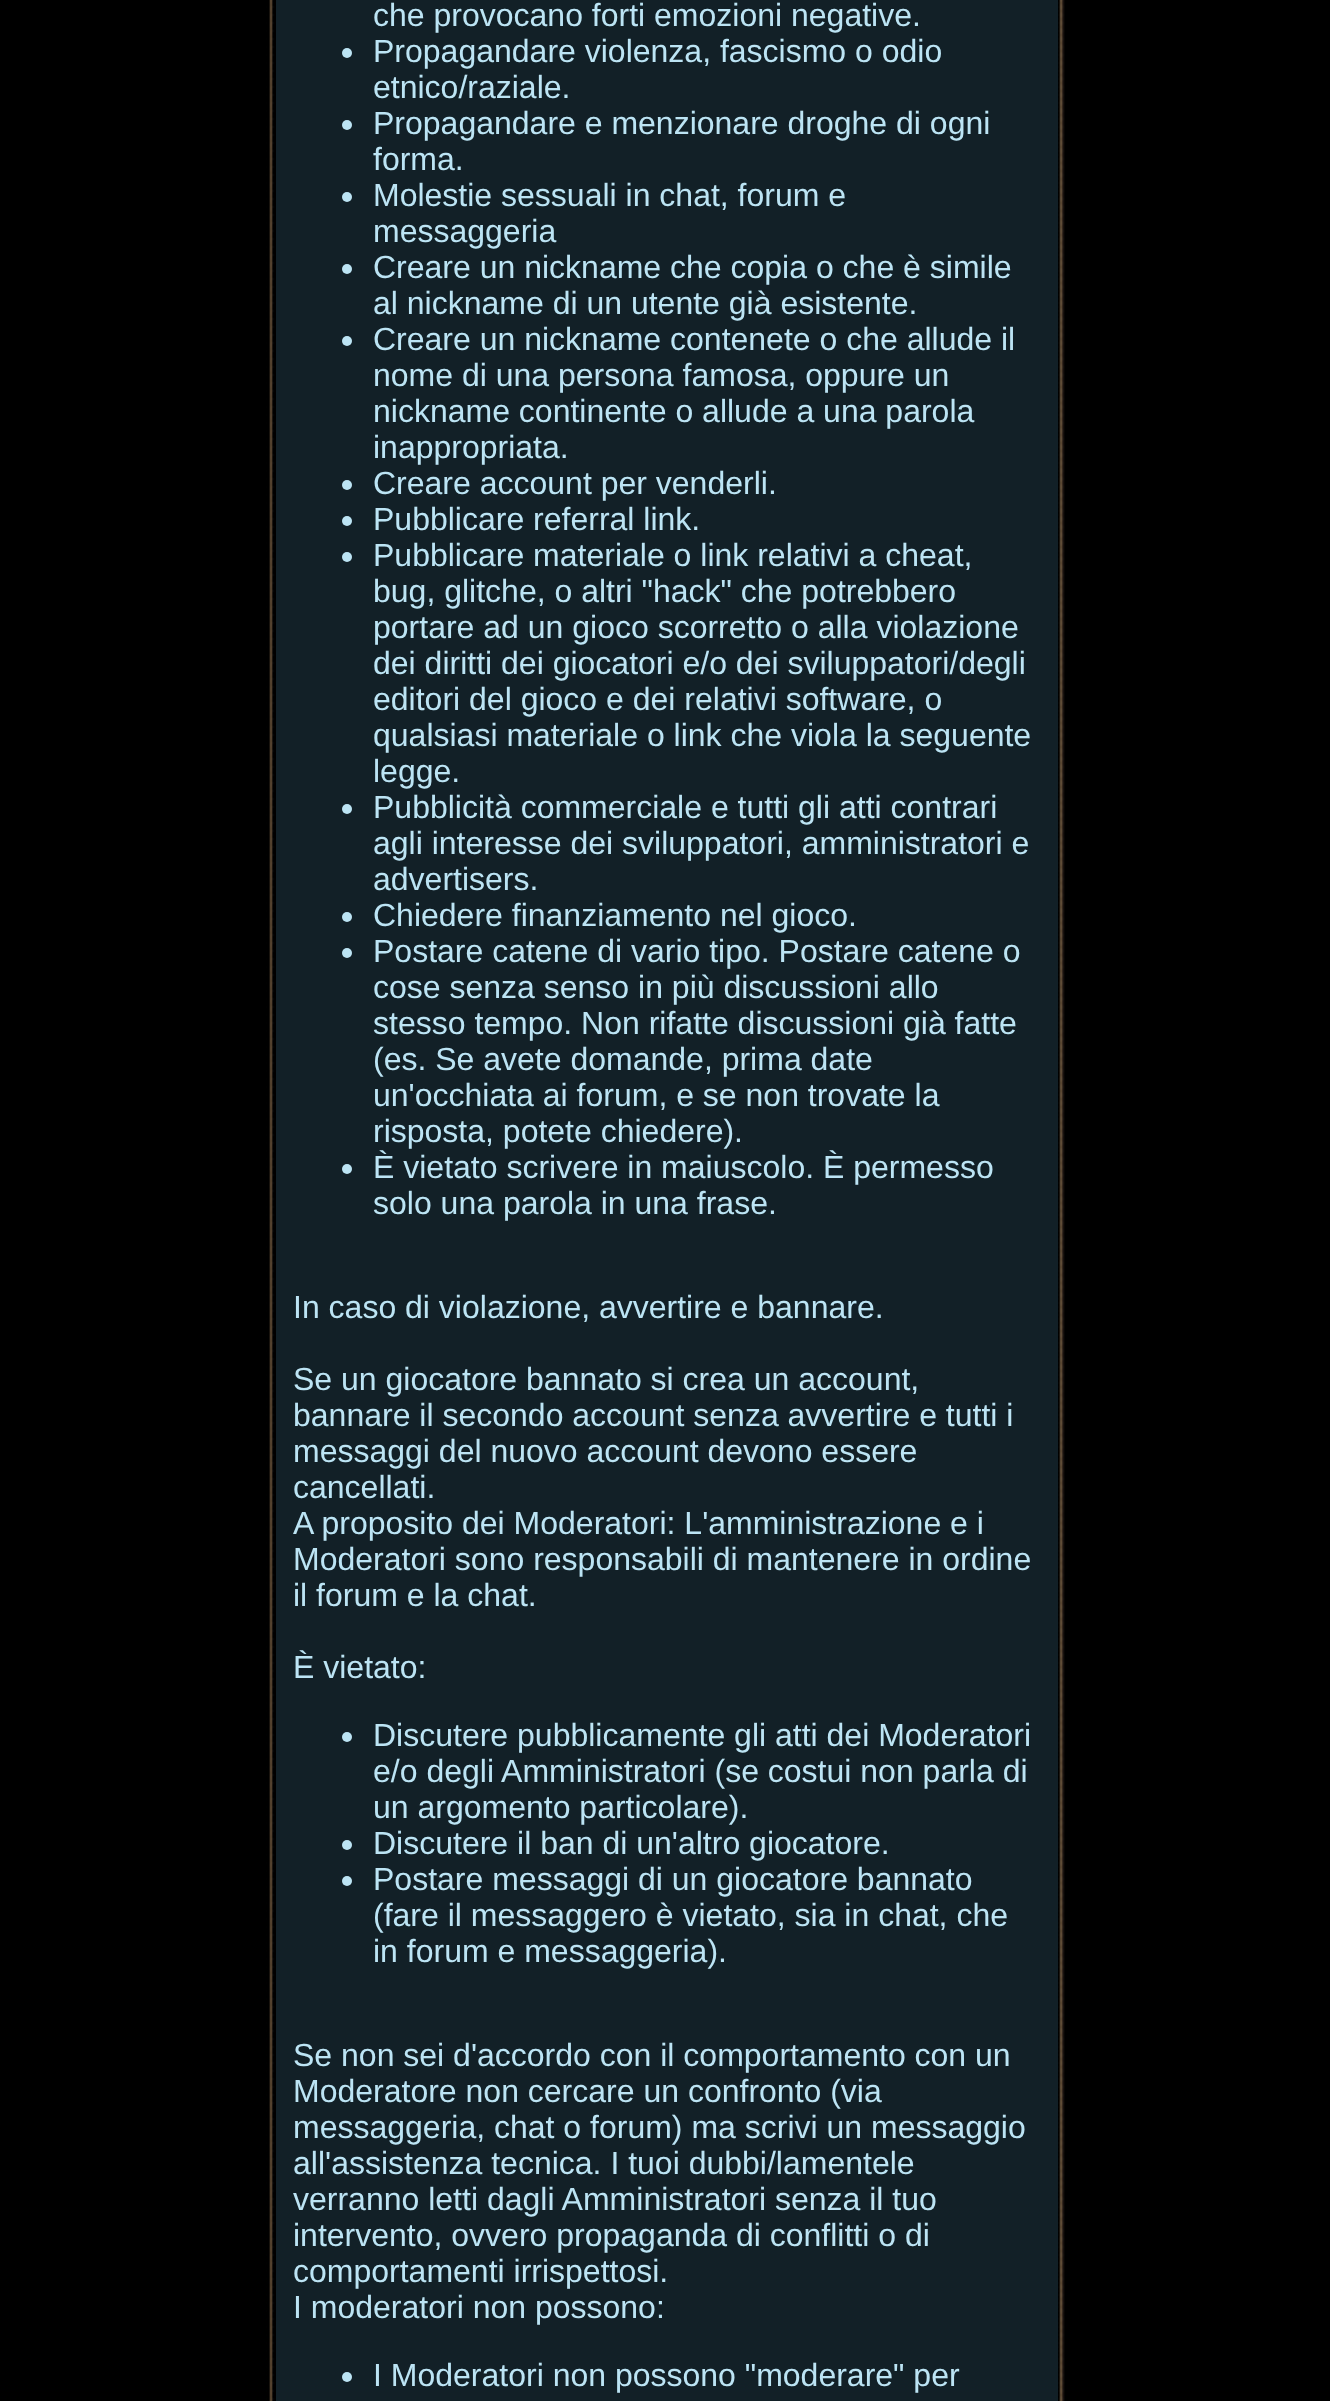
(async () => {
    const canvas = document.querySelector("canvas");
    canvas.width = 1330;
    canvas.height = 2401;
    const context = canvas.getContext("2d");
    context.miterLimit = 4;
    context.fontKerning = "normal";
    function write(s, x, y, font, color) {
        context.font = font;
        context.fillStyle = color;
        context.fillText(s, x, y);
    }
    function block(x, y, w, h, color) {
        context.fillStyle = color;
        context.fillRect(x, y, w, h);
    }
    async function photo(src, x, y, w, h) {
        const img = new Image();
        img.src = src;
        await img.decode();
        context.drawImage(img, x, y, w, h);
    }

    block(0, 0, 1330, 2401, "rgb(0, 0, 0)");
    block(276, 0, 782, 2401, "rgb(18, 32, 39)");
    await photo("media/1.png", 1058, 0, 8, 2401);
    await photo("media/2.png", 266, 0, 10, 2401);
    write("che provocano forti emozioni negative.", 373, 26, "32px Liberation Sans", "rgb(188, 228, 244)");
    context.beginPath();
    context.arc(347, 53, 5, 0, Math.PI * 2);
    context.fill();
    write("Propagandare violenza, fascismo o odio", 373, 62, "32px Liberation Sans", "rgb(188, 228, 244)");
    write("etnico/raziale.", 373, 98, "32px Liberation Sans", "rgb(188, 228, 244)");
    context.beginPath();
    context.arc(347, 125, 5, 0, Math.PI * 2);
    context.fill();
    write("Propagandare e menzionare droghe di ogni", 373, 134, "32px Liberation Sans", "rgb(188, 228, 244)");
    write("forma.", 373, 170, "32px Liberation Sans", "rgb(188, 228, 244)");
    context.beginPath();
    context.arc(347, 197, 5, 0, Math.PI * 2);
    context.fill();
    write("Molestie sessuali in chat, forum e", 373, 206, "32px Liberation Sans", "rgb(188, 228, 244)");
    write("messaggeria", 373, 242, "32px Liberation Sans", "rgb(188, 228, 244)");
    context.beginPath();
    context.arc(347, 269, 5, 0, Math.PI * 2);
    context.fill();
    write("Creare un nickname che copia o che è simile", 373, 278, "32px Liberation Sans", "rgb(188, 228, 244)");
    write("al nickname di un utente già esistente.", 373, 314, "32px Liberation Sans", "rgb(188, 228, 244)");
    context.beginPath();
    context.arc(347, 341, 5, 0, Math.PI * 2);
    context.fill();
    write("Creare un nickname contenete o che allude il", 373, 350, "32px Liberation Sans", "rgb(188, 228, 244)");
    write("nome di una persona famosa, oppure un", 373, 386, "32px Liberation Sans", "rgb(188, 228, 244)");
    write("nickname continente o allude a una parola", 373, 422, "32px Liberation Sans", "rgb(188, 228, 244)");
    write("inappropriata.", 373, 458, "32px Liberation Sans", "rgb(188, 228, 244)");
    context.beginPath();
    context.arc(347, 485, 5, 0, Math.PI * 2);
    context.fill();
    write("Creare account per venderli.", 373, 494, "32px Liberation Sans", "rgb(188, 228, 244)");
    context.beginPath();
    context.arc(347, 521, 5, 0, Math.PI * 2);
    context.fill();
    write("Pubblicare referral link.", 373, 530, "32px Liberation Sans", "rgb(188, 228, 244)");
    context.beginPath();
    context.arc(347, 557, 5, 0, Math.PI * 2);
    context.fill();
    write("Pubblicare materiale o link relativi a cheat,", 373, 566, "32px Liberation Sans", "rgb(188, 228, 244)");
    write("bug, glitche, o altri \"hack\" che potrebbero", 373, 602, "32px Liberation Sans", "rgb(188, 228, 244)");
    write("portare ad un gioco scorretto o alla violazione", 373, 638, "32px Liberation Sans", "rgb(188, 228, 244)");
    write("dei diritti dei giocatori e/o dei sviluppatori/degli", 373, 674, "32px Liberation Sans", "rgb(188, 228, 244)");
    write("editori del gioco e dei relativi software, o", 373, 710, "32px Liberation Sans", "rgb(188, 228, 244)");
    write("qualsiasi materiale o link che viola la seguente", 373, 746, "32px Liberation Sans", "rgb(188, 228, 244)");
    write("legge.", 373, 782, "32px Liberation Sans", "rgb(188, 228, 244)");
    context.beginPath();
    context.arc(347, 809, 5, 0, Math.PI * 2);
    context.fill();
    write("Pubblicità commerciale e tutti gli atti contrari", 373, 818, "32px Liberation Sans", "rgb(188, 228, 244)");
    write("agli interesse dei sviluppatori, amministratori e", 373, 854, "32px Liberation Sans", "rgb(188, 228, 244)");
    write("advertisers.", 373, 890, "32px Liberation Sans", "rgb(188, 228, 244)");
    context.beginPath();
    context.arc(347, 917, 5, 0, Math.PI * 2);
    context.fill();
    write("Chiedere finanziamento nel gioco.", 373, 926, "32px Liberation Sans", "rgb(188, 228, 244)");
    context.beginPath();
    context.arc(347, 953, 5, 0, Math.PI * 2);
    context.fill();
    write("Postare catene di vario tipo. Postare catene o", 373, 962, "32px Liberation Sans", "rgb(188, 228, 244)");
    write("cose senza senso in più discussioni allo", 373, 998, "32px Liberation Sans", "rgb(188, 228, 244)");
    write("stesso tempo. Non rifatte discussioni già fatte", 373, 1034, "32px Liberation Sans", "rgb(188, 228, 244)");
    write("(es. Se avete domande, prima date", 373, 1070, "32px Liberation Sans", "rgb(188, 228, 244)");
    write("un'occhiata ai forum, e se non trovate la", 373, 1106, "32px Liberation Sans", "rgb(188, 228, 244)");
    write("risposta, potete chiedere).", 373, 1142, "32px Liberation Sans", "rgb(188, 228, 244)");
    context.beginPath();
    context.arc(347, 1169, 5, 0, Math.PI * 2);
    context.fill();
    write("È vietato scrivere in maiuscolo. È permesso", 373, 1178, "32px Liberation Sans", "rgb(188, 228, 244)");
    write("solo una parola in una frase.", 373, 1214, "32px Liberation Sans", "rgb(188, 228, 244)");
    write("In caso di violazione, avvertire e bannare.", 293, 1318, "32px Liberation Sans", "rgb(188, 228, 244)");
    write("Se un giocatore bannato si crea un account,", 293, 1390, "32px Liberation Sans", "rgb(188, 228, 244)");
    write("bannare il secondo account senza avvertire e tutti i", 293, 1426, "32px Liberation Sans", "rgb(188, 228, 244)");
    write("messaggi del nuovo account devono essere", 293, 1462, "32px Liberation Sans", "rgb(188, 228, 244)");
    write("cancellati.", 293, 1498, "32px Liberation Sans", "rgb(188, 228, 244)");
    write("A proposito dei Moderatori: L'amministrazione e i", 293, 1534, "32px Liberation Sans", "rgb(188, 228, 244)");
    write("Moderatori sono responsabili di mantenere in ordine", 293, 1570, "32px Liberation Sans", "rgb(188, 228, 244)");
    write("il forum e la chat.", 293, 1606, "32px Liberation Sans", "rgb(188, 228, 244)");
    write("È vietato:", 293, 1678, "32px Liberation Sans", "rgb(188, 228, 244)");
    context.beginPath();
    context.arc(347, 1737, 5, 0, Math.PI * 2);
    context.fill();
    write("Discutere pubblicamente gli atti dei Moderatori", 373, 1746, "32px Liberation Sans", "rgb(188, 228, 244)");
    write("e/o degli Amministratori (se costui non parla di", 373, 1782, "32px Liberation Sans", "rgb(188, 228, 244)");
    write("un argomento particolare).", 373, 1818, "32px Liberation Sans", "rgb(188, 228, 244)");
    context.beginPath();
    context.arc(347, 1845, 5, 0, Math.PI * 2);
    context.fill();
    write("Discutere il ban di un'altro giocatore.", 373, 1854, "32px Liberation Sans", "rgb(188, 228, 244)");
    context.beginPath();
    context.arc(347, 1881, 5, 0, Math.PI * 2);
    context.fill();
    write("Postare messaggi di un giocatore bannato", 373, 1890, "32px Liberation Sans", "rgb(188, 228, 244)");
    write("(fare il messaggero è vietato, sia in chat, che", 373, 1926, "32px Liberation Sans", "rgb(188, 228, 244)");
    write("in forum e messaggeria).", 373, 1962, "32px Liberation Sans", "rgb(188, 228, 244)");
    write("Se non sei d'accordo con il comportamento con un", 293, 2066, "32px Liberation Sans", "rgb(188, 228, 244)");
    write("Moderatore non cercare un confronto (via", 293, 2102, "32px Liberation Sans", "rgb(188, 228, 244)");
    write("messaggeria, chat o forum) ma scrivi un messaggio", 293, 2138, "32px Liberation Sans", "rgb(188, 228, 244)");
    write("all'assistenza tecnica. I tuoi dubbi/lamentele", 293, 2174, "32px Liberation Sans", "rgb(188, 228, 244)");
    write("verranno letti dagli Amministratori senza il tuo", 293, 2210, "32px Liberation Sans", "rgb(188, 228, 244)");
    write("intervento, ovvero propaganda di conflitti o di", 293, 2246, "32px Liberation Sans", "rgb(188, 228, 244)");
    write("comportamenti irrispettosi.", 293, 2282, "32px Liberation Sans", "rgb(188, 228, 244)");
    write("I moderatori non possono:", 293, 2318, "32px Liberation Sans", "rgb(188, 228, 244)");
    context.beginPath();
    context.arc(347, 2377, 5, 0, Math.PI * 2);
    context.fill();
    write("I Moderatori non possono \"moderare\" per", 373, 2386, "32px Liberation Sans", "rgb(188, 228, 244)");
})();
